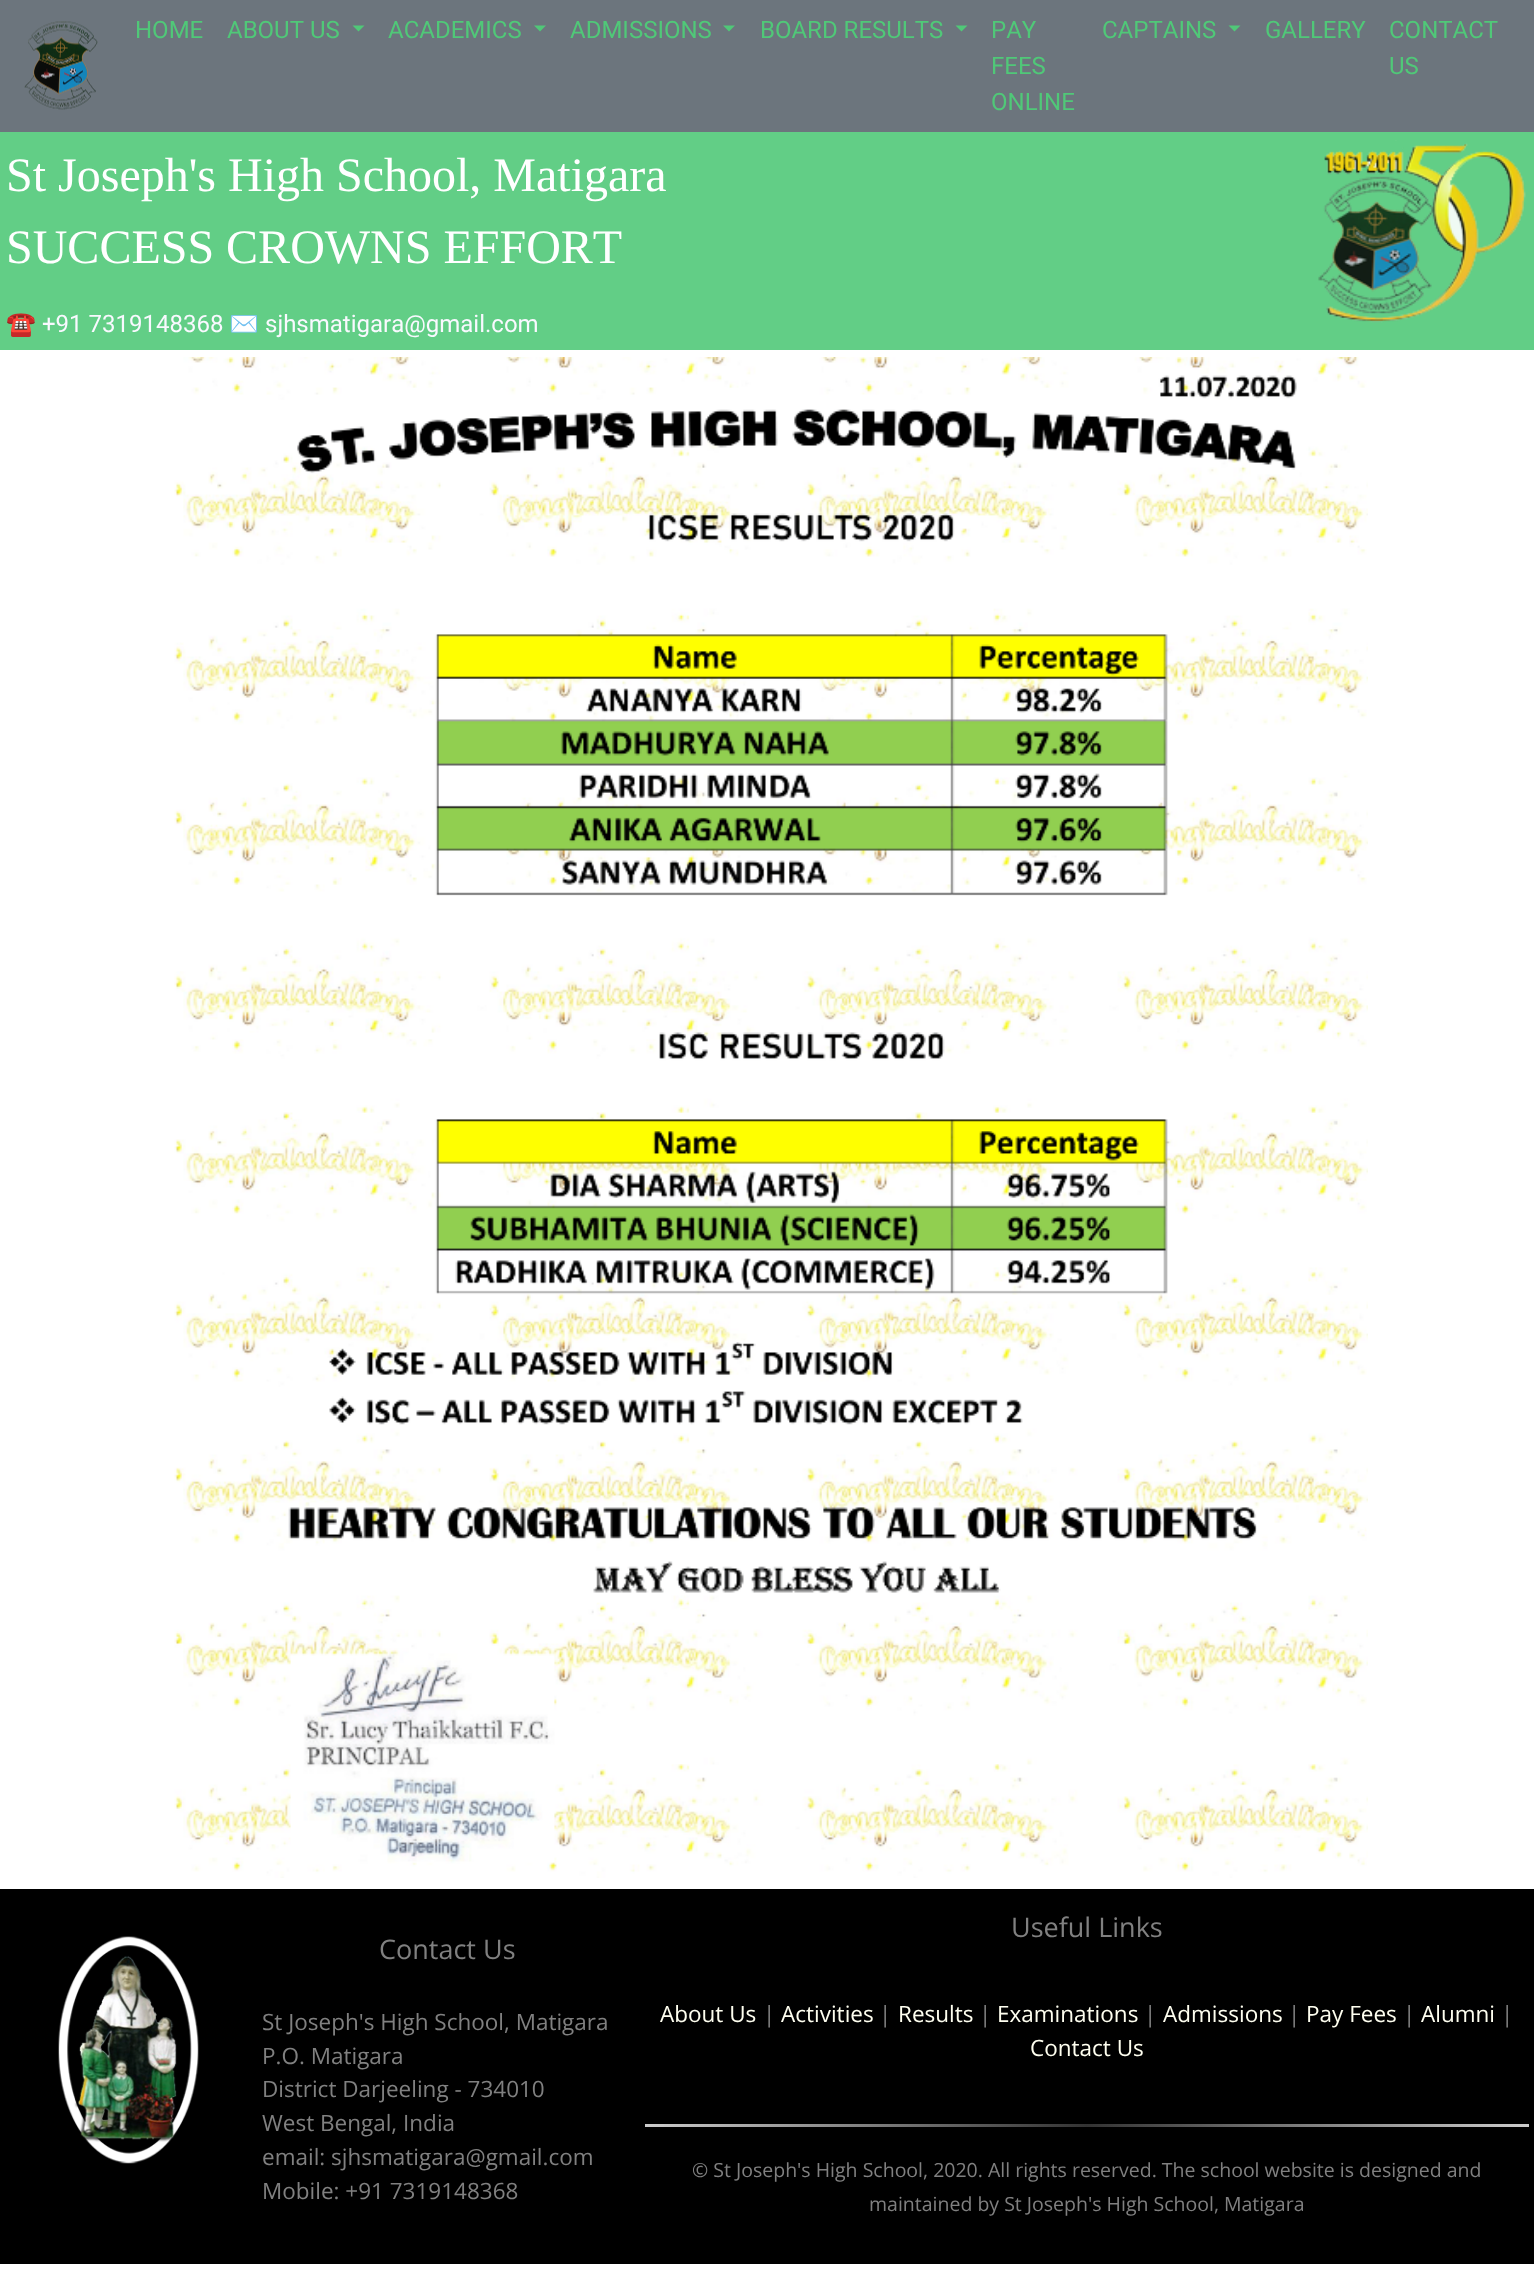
(async () => {
    const canvas = document.querySelector("canvas");
    canvas.width = 1534;
    canvas.height = 2293;
    const context = canvas.getContext("2d");
    context.miterLimit = 4;
    context.fontKerning = "none";
    function write(s, x, y, font, color) {
        context.font = font;
        context.fillStyle = color;
        context.fillText(s, x, y);
    }
    function block(x, y, w, h, color) {
        context.fillStyle = color;
        context.fillRect(x, y, w, h);
    }
    async function photo(src, x, y, w, h) {
        const img = new Image();
        img.src = src;
        await img.decode();
        context.drawImage(img, x, y, w, h);
    }
    let gradient;

    block(0, 0, 1534, 2293, "rgb(255, 255, 255)");
    block(0, 0, 1534, 132, "rgb(108, 117, 125)");
    await photo("media/1.png", 24, 21, 74, 89);
    write("HOME", 135, 38, "24px Roboto", "rgb(80, 200, 120)");
    write("ABOUT US", 227, 38, "24px Roboto", "rgb(80, 200, 120)");
    context.beginPath();
    context.moveTo(352.5, 25.5);
    context.lineTo(364.5, 25.5);
    context.lineTo(358.5, 31.5);
    context.closePath();
    context.fill();
    write("ACADEMICS", 388, 38, "24px Roboto", "rgb(80, 200, 120)");
    context.beginPath();
    context.moveTo(534, 25.5);
    context.lineTo(546, 25.5);
    context.lineTo(540, 31.5);
    context.closePath();
    context.fill();
    write("ADMISSIONS", 570, 38, "24px Roboto", "rgb(80, 200, 120)");
    context.beginPath();
    context.moveTo(723, 25.5);
    context.lineTo(735, 25.5);
    context.lineTo(729, 31.5);
    context.closePath();
    context.fill();
    write("BOARD RESULTS", 760, 38, "24px Roboto", "rgb(80, 200, 120)");
    context.beginPath();
    context.moveTo(955.5, 25.5);
    context.lineTo(967.5, 25.5);
    context.lineTo(961.5, 31.5);
    context.closePath();
    context.fill();
    write("PAY", 991, 38, "24px Roboto", "rgb(80, 200, 120)");
    write("FEES", 991, 74, "24px Roboto", "rgb(80, 200, 120)");
    write("ONLINE", 991, 110, "24px Roboto", "rgb(80, 200, 120)");
    write("CAPTAINS", 1102, 38, "24px Roboto", "rgb(80, 200, 120)");
    context.beginPath();
    context.moveTo(1228.5, 25.5);
    context.lineTo(1240.5, 25.5);
    context.lineTo(1234.5, 31.5);
    context.closePath();
    context.fill();
    write("GALLERY", 1265, 38, "24px Roboto", "rgb(80, 200, 120)");
    write("CONTACT", 1389, 38, "24px Roboto", "rgb(80, 200, 120)");
    write("US", 1389, 74, "24px Roboto", "rgb(80, 200, 120)");
    block(0, 132, 1534, 218, "rgb(98, 206, 134)");
    write("St Joseph's High School, Matigara", 6, 191, "48px Liberation Serif", "rgb(255, 255, 255)");
    write("SUCCESS CROWNS EFFORT", 6, 263, "48px Liberation Serif", "rgb(255, 255, 255)");
    write("☎", 6, 332, "24px Noto Color Emoji", "rgb(249, 249, 255)");
    write("+91 7319148368", 42, 332, "24px Roboto", "rgb(249, 249, 255)");
    write("✉", 229, 332, "24px Noto Color Emoji", "rgb(249, 249, 255)");
    write("sjhsmatigara@gmail.com", 265, 332, "24px Roboto", "rgb(249, 249, 255)");
    await photo("media/2.png", 1318, 140, 208, 183);
    await photo("media/3.png", 174, 357, 1194, 1521);
    block(0, 1889, 1534, 375, "rgb(0, 0, 0)");
    await photo("media/4.png", 58, 1936, 141, 228);
    write("Contact Us", 379, 1959, "27px Open Sans", "rgb(128, 128, 128)");
    write("St Joseph's High School, Matigara", 262, 2030, "22.5px Open Sans", "rgb(128, 128, 128)");
    write("P.O. Matigara", 262, 2064, "22.5px Open Sans", "rgb(128, 128, 128)");
    write("District Darjeeling - 734010", 262, 2097, "22.5px Open Sans", "rgb(128, 128, 128)");
    write("West Bengal, India", 262, 2131, "22.5px Open Sans", "rgb(128, 128, 128)");
    write("email: sjhsmatigara@gmail.com", 262, 2165, "22.5px Open Sans", "rgb(128, 128, 128)");
    write("Mobile: +91 7319148368", 262, 2199, "22.5px Open Sans", "rgb(128, 128, 128)");
    write("Useful Links", 1011, 1937, "27px Open Sans", "rgb(128, 128, 128)");
    write("About Us", 660, 2022, "22.5px Open Sans", "rgb(255, 255, 240)");
    write("|", 763, 2022, "22.5px Open Sans", "rgb(128, 128, 128)");
    write("Activities", 781, 2022, "22.5px Open Sans", "rgb(255, 255, 240)");
    write("|", 879, 2022, "22.5px Open Sans", "rgb(128, 128, 128)");
    write("Results", 898, 2022, "22.5px Open Sans", "rgb(255, 255, 240)");
    write("|", 979, 2022, "22.5px Open Sans", "rgb(128, 128, 128)");
    write("Examinations", 997, 2022, "22.5px Open Sans", "rgb(255, 255, 240)");
    write("|", 1144, 2022, "22.5px Open Sans", "rgb(128, 128, 128)");
    write("Admissions", 1163, 2022, "22.5px Open Sans", "rgb(255, 255, 240)");
    write("|", 1288, 2022, "22.5px Open Sans", "rgb(128, 128, 128)");
    write("Pay Fees", 1306, 2022, "22.5px Open Sans", "rgb(255, 255, 240)");
    write("|", 1403, 2022, "22.5px Open Sans", "rgb(128, 128, 128)");
    write("Alumni", 1421, 2022, "22.5px Open Sans", "rgb(255, 255, 240)");
    write("|", 1501, 2022, "22.5px Open Sans", "rgb(128, 128, 128)");
    write("Contact Us", 1030, 2056, "22.5px Open Sans", "rgb(255, 255, 240)");
    gradient = context.createLinearGradient(645, 2126, 1529, 2126);
    gradient.addColorStop(0, "rgb(204, 204, 204)");
    gradient.addColorStop(0.5, "rgb(51, 51, 51)");
    gradient.addColorStop(1, "rgb(204, 204, 204)");
    context.fillStyle = gradient;
    context.fillRect(645, 2124, 884, 3);
    write("© St Joseph's High School, 2020. All rights reserved. The school website is designed and", 692, 2177, "19.5px Open Sans", "rgb(128, 128, 128)");
    write("maintained by St Joseph's High School, Matigara", 869, 2211, "19.5px Open Sans", "rgb(128, 128, 128)");
})();
